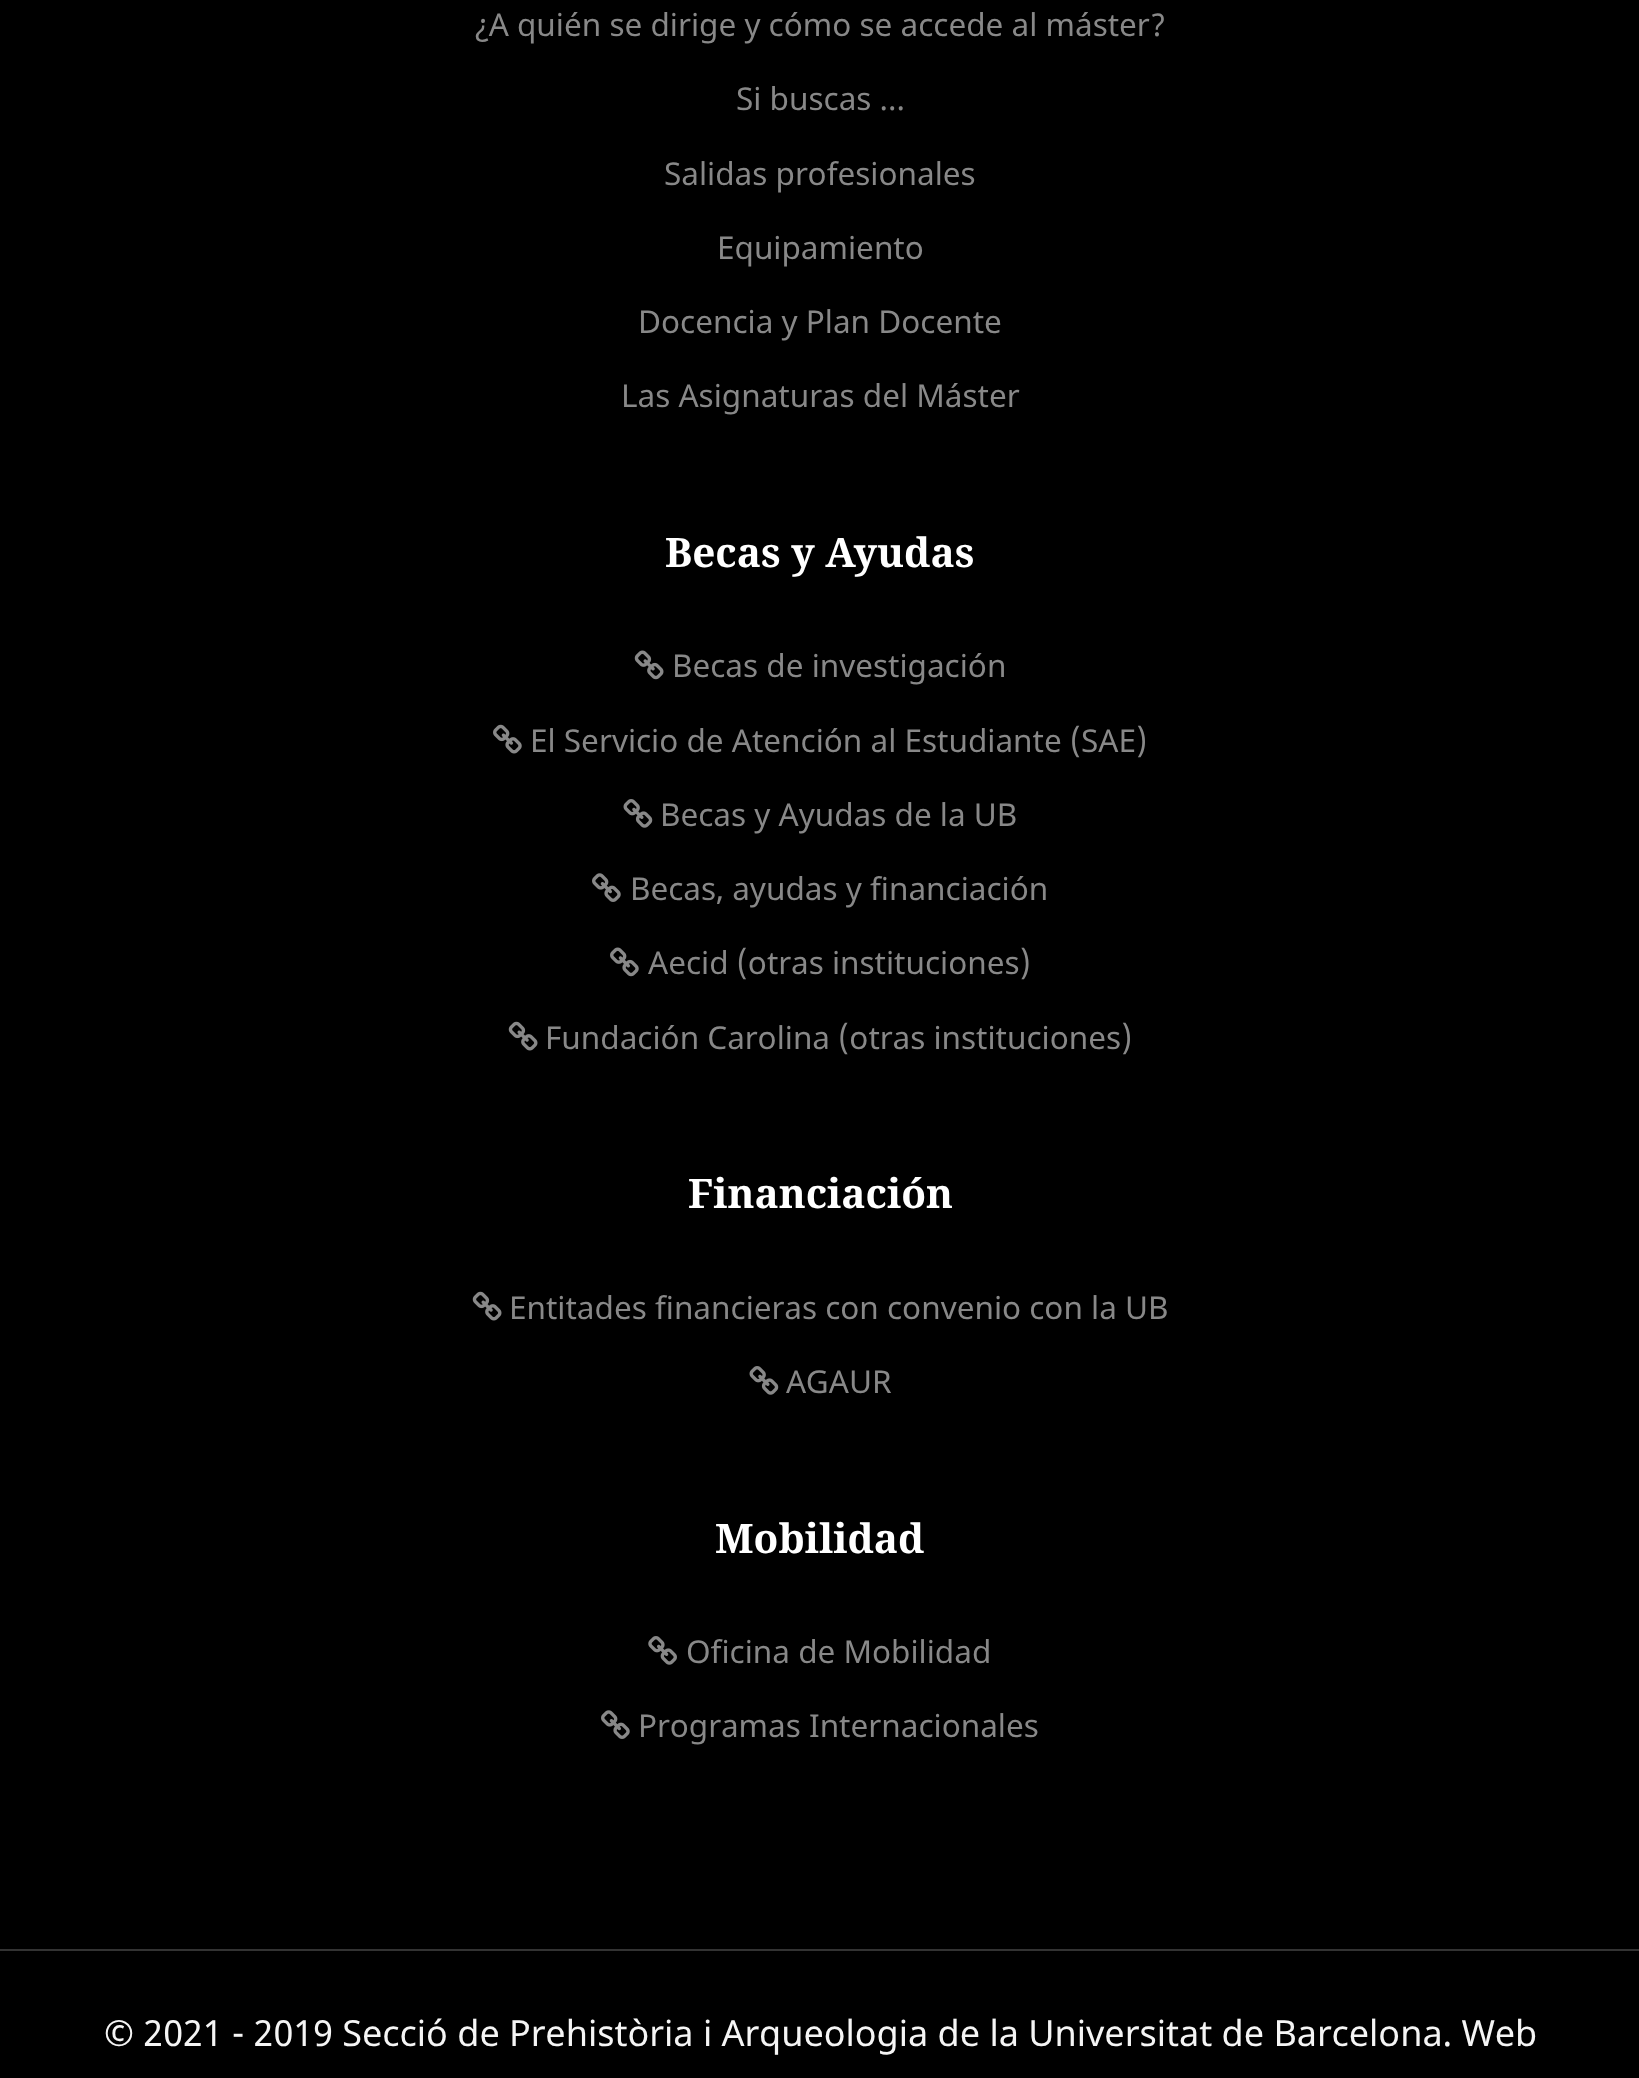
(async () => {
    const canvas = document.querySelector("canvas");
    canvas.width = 1639;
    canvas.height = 2078;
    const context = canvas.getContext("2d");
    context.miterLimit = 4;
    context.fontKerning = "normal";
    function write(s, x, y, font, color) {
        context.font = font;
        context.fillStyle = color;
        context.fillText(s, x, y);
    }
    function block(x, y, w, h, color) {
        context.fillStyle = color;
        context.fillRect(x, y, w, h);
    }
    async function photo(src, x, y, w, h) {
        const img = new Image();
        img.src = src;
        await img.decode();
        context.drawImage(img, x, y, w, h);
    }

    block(0, 0, 1639, 2078, "rgb(0, 0, 0)");
    write("¿A quién se dirige y cómo se accede al máster?", 475, 36, "31.5px Noto Sans", "rgb(136, 136, 136)");
    write("Si buscas ...", 736, 110, "31.5px Noto Sans", "rgb(136, 136, 136)");
    write("Salidas profesionales", 664, 185, "31.5px Noto Sans", "rgb(136, 136, 136)");
    write("Equipamiento", 717, 259, "31.5px Noto Sans", "rgb(136, 136, 136)");
    write("Docencia y Plan Docente", 638, 333, "31.5px Noto Sans", "rgb(136, 136, 136)");
    write("Las Asignaturas del Máster", 621, 407, "31.5px Noto Sans", "rgb(136, 136, 136)");
    write("Becas y Ayudas", 665, 567, "bold 40.5px Noto Serif", "rgb(255, 255, 255)");
    await photo("media/1.png", 634, 650, 30, 30);
    write("Becas de investigación", 672, 677, "31.5px Noto Sans", "rgb(136, 136, 136)");
    await photo("media/2.png", 493, 724, 29, 30);
    write("El Servicio de Atención al Estudiante (SAE)", 530, 752, "31.5px Noto Sans", "rgb(136, 136, 136)");
    await photo("media/3.png", 623, 799, 30, 29);
    write("Becas y Ayudas de la UB", 660, 826, "31.5px Noto Sans", "rgb(136, 136, 136)");
    await photo("media/4.png", 592, 873, 29, 29);
    write("Becas, ayudas y financiación", 630, 900, "31.5px Noto Sans", "rgb(136, 136, 136)");
    await photo("media/5.png", 610, 947, 29, 30);
    write("Aecid (otras instituciones)", 648, 974, "31.5px Noto Sans", "rgb(136, 136, 136)");
    await photo("media/6.png", 508, 1021, 30, 30);
    write("Fundación Carolina (otras instituciones)", 545, 1049, "31.5px Noto Sans", "rgb(136, 136, 136)");
    write("Financiación", 688, 1208, "bold 40.5px Noto Serif", "rgb(255, 255, 255)");
    await photo("media/6.png", 472, 1291, 30, 30);
    write("Entitades financieras con convenio con la UB", 509, 1319, "31.5px Noto Sans", "rgb(136, 136, 136)");
    await photo("media/3.png", 749, 1366, 30, 29);
    write("AGAUR", 786, 1393, "31.5px Noto Sans", "rgb(136, 136, 136)");
    write("Mobilidad", 715, 1553, "bold 40.5px Noto Serif", "rgb(255, 255, 255)");
    await photo("media/7.png", 648, 1636, 29, 29);
    write("Oficina de Mobilidad", 686, 1663, "31.5px Noto Sans", "rgb(136, 136, 136)");
    await photo("media/4.png", 601, 1710, 29, 29);
    write("Programas Internacionales", 638, 1737, "31.5px Noto Sans", "rgb(136, 136, 136)");
    block(0, 1949, 1639, 2, "rgb(51, 51, 51)");
    write("© 2021 - 2019 Secció de Prehistòria i Arqueologia de la Universitat de Barcelona. Web", 104, 2046, "36px Noto Sans", "rgb(245, 245, 245)");
})();
